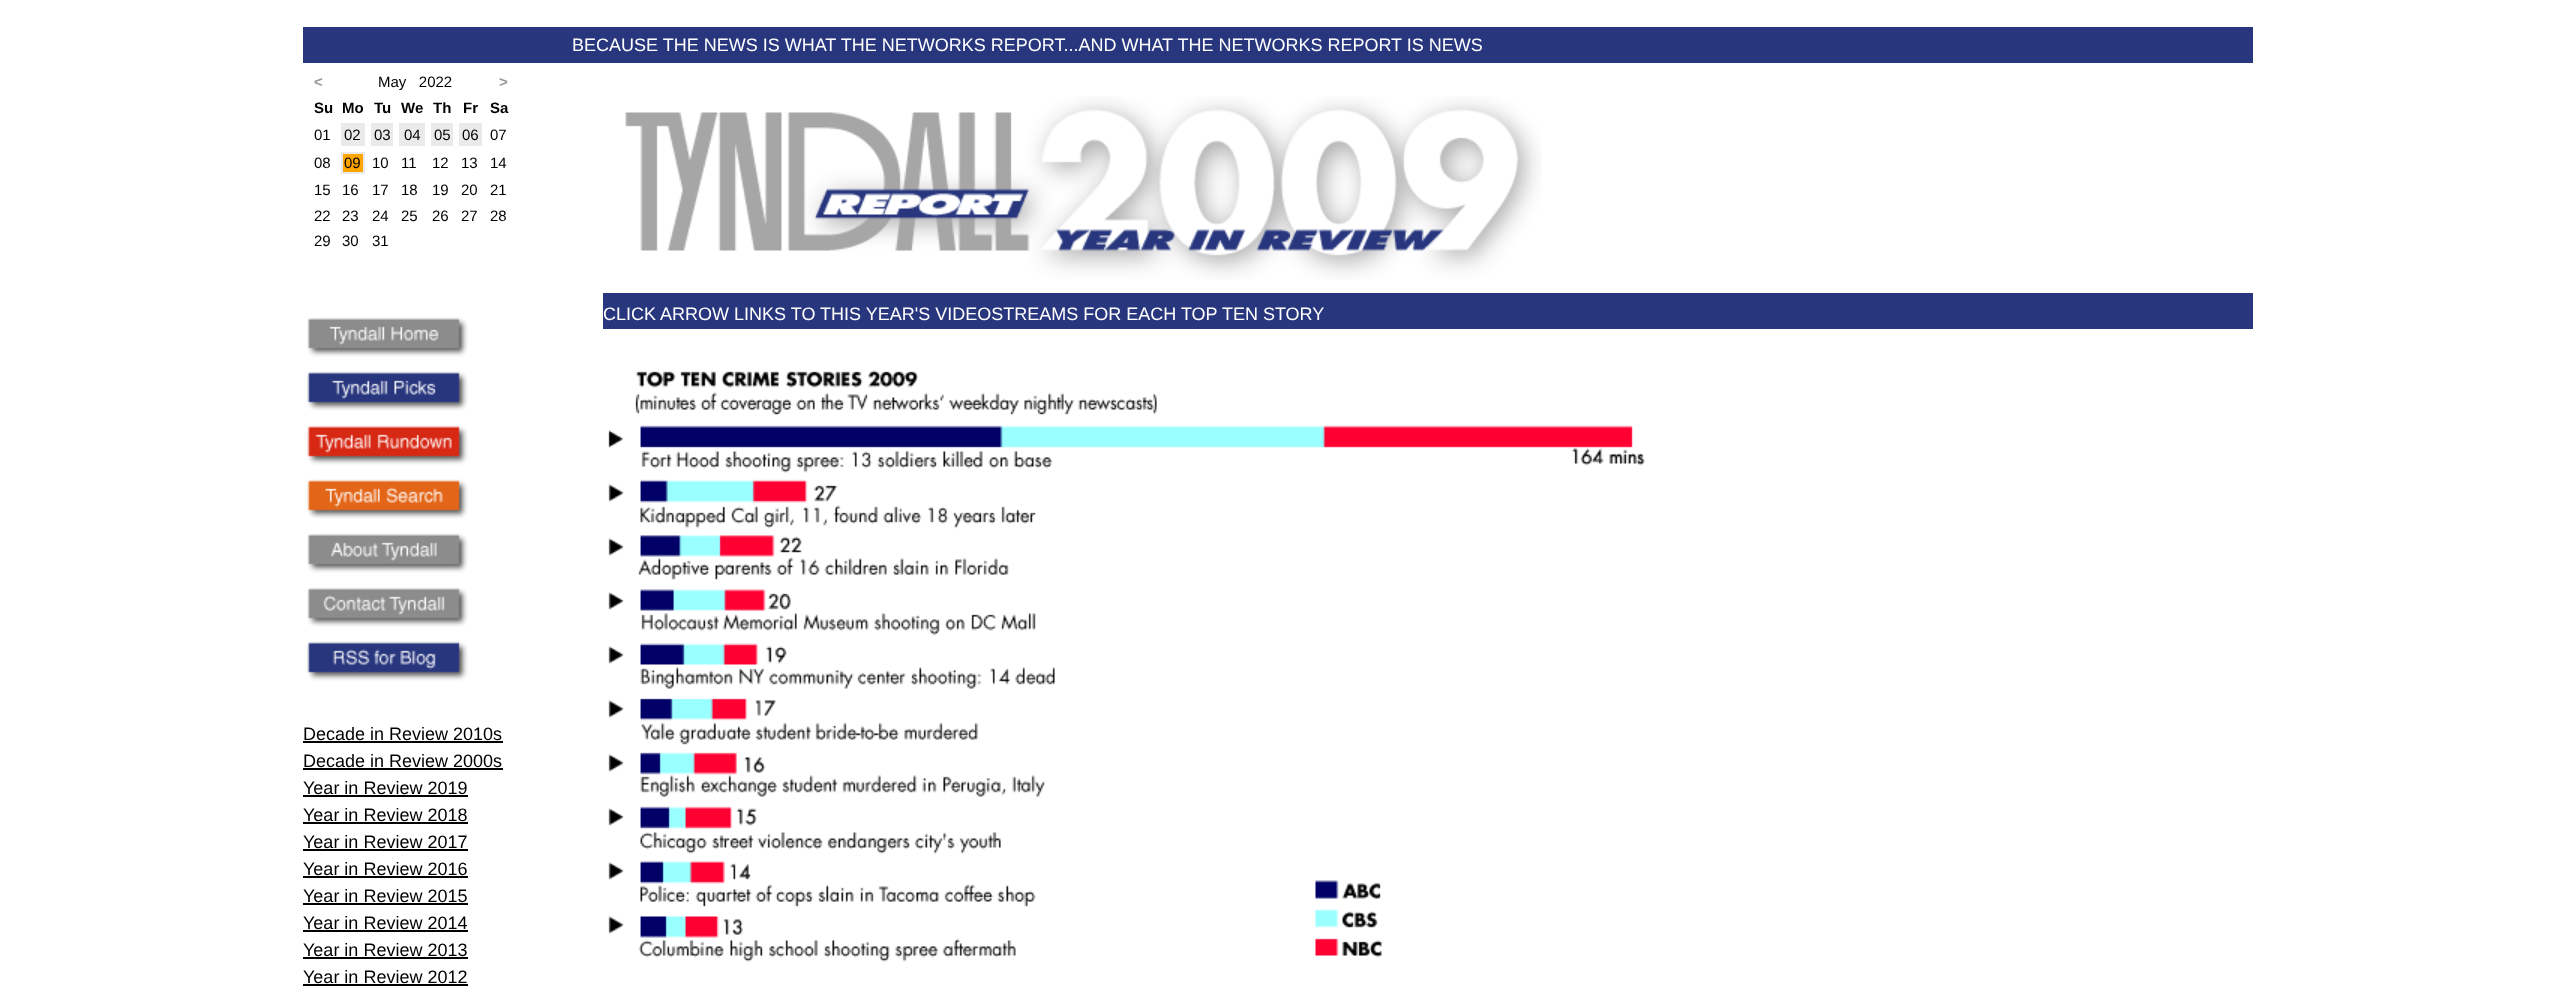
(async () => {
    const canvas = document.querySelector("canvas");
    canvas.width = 2556;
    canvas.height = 1004;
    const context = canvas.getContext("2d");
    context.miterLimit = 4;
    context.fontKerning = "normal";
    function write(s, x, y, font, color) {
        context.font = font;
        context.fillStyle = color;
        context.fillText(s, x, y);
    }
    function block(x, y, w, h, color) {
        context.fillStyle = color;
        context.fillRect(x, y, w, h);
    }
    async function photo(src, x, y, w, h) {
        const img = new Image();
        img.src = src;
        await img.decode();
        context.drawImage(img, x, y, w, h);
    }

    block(0, 0, 2556, 1004, "rgb(255, 255, 255)");
    block(303, 27, 1950, 36, "rgb(40, 54, 126)");
    write("BECAUSE THE NEWS IS WHAT THE NETWORKS REPORT...AND WHAT THE NETWORKS REPORT IS NEWS", 572, 51, "18px Liberation Sans", "rgb(255, 255, 255)");
    write("<", 314, 87, "bold 15px Liberation Sans", "rgb(153, 153, 153)");
    write("May   2022", 378, 87, "15px Liberation Sans", "rgb(0, 0, 0)");
    write(">", 499, 87, "bold 15px Liberation Sans", "rgb(153, 153, 153)");
    write("Su", 314, 113, "bold 15px Liberation Sans", "rgb(0, 0, 0)");
    write("Mo", 342, 113, "bold 15px Liberation Sans", "rgb(0, 0, 0)");
    write("Tu", 374, 113, "bold 15px Liberation Sans", "rgb(0, 0, 0)");
    write("We", 401, 113, "bold 15px Liberation Sans", "rgb(0, 0, 0)");
    write("Th", 433, 113, "bold 15px Liberation Sans", "rgb(0, 0, 0)");
    write("Fr", 463, 113, "bold 15px Liberation Sans", "rgb(0, 0, 0)");
    write("Sa", 490, 113, "bold 15px Liberation Sans", "rgb(0, 0, 0)");
    write("01", 314, 140, "15px Liberation Sans", "rgb(0, 0, 0)");
    block(341, 123, 24, 23, "rgb(234, 234, 234)");
    write("02", 344, 140, "15px Liberation Sans", "rgb(0, 0, 0)");
    block(371, 123, 22, 23, "rgb(234, 234, 234)");
    write("03", 374, 140, "15px Liberation Sans", "rgb(0, 0, 0)");
    block(399, 123, 26, 23, "rgb(234, 234, 234)");
    write("04", 404, 140, "15px Liberation Sans", "rgb(0, 0, 0)");
    block(431, 123, 22, 23, "rgb(234, 234, 234)");
    write("05", 434, 140, "15px Liberation Sans", "rgb(0, 0, 0)");
    block(459, 123, 23, 23, "rgb(234, 234, 234)");
    write("06", 462, 140, "15px Liberation Sans", "rgb(0, 0, 0)");
    write("07", 490, 140, "15px Liberation Sans", "rgb(0, 0, 0)");
    write("08", 314, 168, "15px Liberation Sans", "rgb(0, 0, 0)");
    context.fillStyle = "rgb(255, 165, 0)";
    context.beginPath();
    context.rect(342, 153, 22, 20);
    context.fill();
    context.strokeStyle = "rgb(234, 234, 234)";
    context.lineWidth = 2;
    context.stroke();
    write("09", 344, 168, "15px Liberation Sans", "rgb(0, 0, 0)");
    write("10", 372, 168, "15px Liberation Sans", "rgb(0, 0, 0)");
    write("11", 401, 168, "15px Liberation Sans", "rgb(0, 0, 0)");
    write("12", 432, 168, "15px Liberation Sans", "rgb(0, 0, 0)");
    write("13", 461, 168, "15px Liberation Sans", "rgb(0, 0, 0)");
    write("14", 490, 168, "15px Liberation Sans", "rgb(0, 0, 0)");
    write("15", 314, 195, "15px Liberation Sans", "rgb(0, 0, 0)");
    write("16", 342, 195, "15px Liberation Sans", "rgb(0, 0, 0)");
    write("17", 372, 195, "15px Liberation Sans", "rgb(0, 0, 0)");
    write("18", 401, 195, "15px Liberation Sans", "rgb(0, 0, 0)");
    write("19", 432, 195, "15px Liberation Sans", "rgb(0, 0, 0)");
    write("20", 461, 195, "15px Liberation Sans", "rgb(0, 0, 0)");
    write("21", 490, 195, "15px Liberation Sans", "rgb(0, 0, 0)");
    write("22", 314, 221, "15px Liberation Sans", "rgb(0, 0, 0)");
    write("23", 342, 221, "15px Liberation Sans", "rgb(0, 0, 0)");
    write("24", 372, 221, "15px Liberation Sans", "rgb(0, 0, 0)");
    write("25", 401, 221, "15px Liberation Sans", "rgb(0, 0, 0)");
    write("26", 432, 221, "15px Liberation Sans", "rgb(0, 0, 0)");
    write("27", 461, 221, "15px Liberation Sans", "rgb(0, 0, 0)");
    write("28", 490, 221, "15px Liberation Sans", "rgb(0, 0, 0)");
    write("29", 314, 246, "15px Liberation Sans", "rgb(0, 0, 0)");
    write("30", 342, 246, "15px Liberation Sans", "rgb(0, 0, 0)");
    write("31", 372, 246, "15px Liberation Sans", "rgb(0, 0, 0)");
    await photo("media/1.png", 307, 317, 161, 40);
    await photo("media/2.png", 307, 371, 161, 40);
    await photo("media/3.png", 307, 425, 161, 40);
    await photo("media/4.png", 307, 479, 161, 40);
    await photo("media/5.png", 307, 533, 161, 40);
    await photo("media/6.png", 307, 587, 161, 40);
    await photo("media/7.png", 307, 641, 161, 40);
    write("Decade in Review 2010s", 303, 740, "18px Liberation Sans", "rgb(0, 0, 0)");
    block(303, 741, 200, 2, "rgb(0, 0, 0)");
    write("Decade in Review 2000s", 303, 767, "18px Liberation Sans", "rgb(0, 0, 0)");
    block(303, 768, 200, 2, "rgb(0, 0, 0)");
    write("Year in Review 2019", 303, 794, "18px Liberation Sans", "rgb(0, 0, 0)");
    block(303, 795, 165, 2, "rgb(0, 0, 0)");
    write("Year in Review 2018", 303, 821, "18px Liberation Sans", "rgb(0, 0, 0)");
    block(303, 822, 165, 2, "rgb(0, 0, 0)");
    write("Year in Review 2017", 303, 848, "18px Liberation Sans", "rgb(0, 0, 0)");
    block(303, 849, 165, 2, "rgb(0, 0, 0)");
    write("Year in Review 2016", 303, 875, "18px Liberation Sans", "rgb(0, 0, 0)");
    block(303, 876, 165, 2, "rgb(0, 0, 0)");
    write("Year in Review 2015", 303, 902, "18px Liberation Sans", "rgb(0, 0, 0)");
    block(303, 903, 165, 2, "rgb(0, 0, 0)");
    write("Year in Review 2014", 303, 929, "18px Liberation Sans", "rgb(0, 0, 0)");
    block(303, 930, 165, 2, "rgb(0, 0, 0)");
    write("Year in Review 2013", 303, 956, "18px Liberation Sans", "rgb(0, 0, 0)");
    block(303, 957, 165, 2, "rgb(0, 0, 0)");
    write("Year in Review 2012", 303, 983, "18px Liberation Sans", "rgb(0, 0, 0)");
    block(303, 984, 165, 2, "rgb(0, 0, 0)");
    await photo("media/8.png", 625, 96, 917, 184);
    block(603, 293, 1650, 36, "rgb(40, 54, 126)");
    write("CLICK ARROW LINKS TO THIS YEAR'S VIDEOSTREAMS FOR EACH TOP TEN STORY", 603, 320, "18px Liberation Sans", "rgb(255, 255, 255)");
    await photo("media/9.png", 608, 430, 16, 18);
    await photo("media/10.png", 608, 484, 17, 18);
    await photo("media/10.png", 608, 538, 17, 18);
    await photo("media/10.png", 608, 592, 17, 18);
    await photo("media/10.png", 608, 646, 17, 18);
    await photo("media/10.png", 608, 700, 17, 18);
    await photo("media/10.png", 608, 754, 17, 18);
    await photo("media/10.png", 608, 808, 17, 18);
    await photo("media/10.png", 608, 862, 17, 18);
    await photo("media/10.png", 608, 916, 17, 18);
    await photo("media/11.png", 635, 370, 1010, 592);
})();
